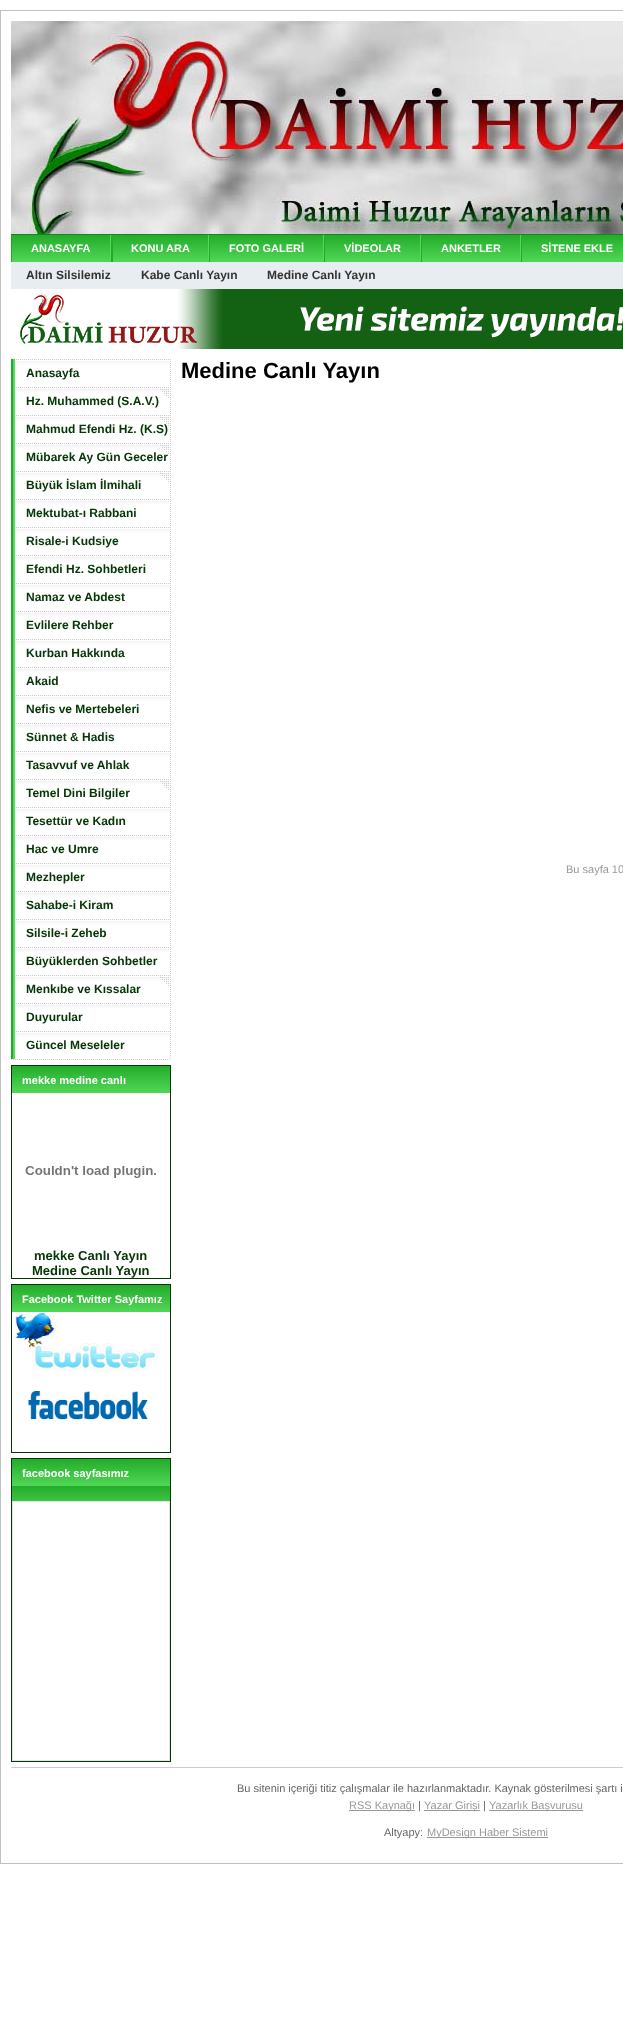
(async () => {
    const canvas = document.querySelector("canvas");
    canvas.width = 623;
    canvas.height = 2032;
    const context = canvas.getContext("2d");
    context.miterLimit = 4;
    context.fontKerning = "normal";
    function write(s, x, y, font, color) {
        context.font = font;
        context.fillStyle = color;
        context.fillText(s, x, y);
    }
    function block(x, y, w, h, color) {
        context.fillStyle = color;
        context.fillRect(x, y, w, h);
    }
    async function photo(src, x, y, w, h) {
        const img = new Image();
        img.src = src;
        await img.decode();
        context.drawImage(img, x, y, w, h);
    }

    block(0, 0, 623, 2032, "rgb(255, 255, 255)");
    context.strokeStyle = "rgb(192, 192, 192)";
    context.strokeRect(0.5, 10.5, 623, 1853);
    await photo("media/1.png", 11, 21, 612, 213);
    await photo("media/2.png", 11, 234, 612, 28);
    block(110, 235, 1, 26, "rgb(84, 218, 88)");
    block(11, 237, 1, 25, "rgb(34, 170, 42)");
    write("ANASAYFA", 31, 252, "bold 11px Liberation Sans", "rgb(255, 255, 255)");
    block(208, 235, 1, 26, "rgb(84, 218, 88)");
    block(111, 237, 2, 25, "rgb(34, 170, 42)");
    write("KONU ARA", 131, 252, "bold 11px Liberation Sans", "rgb(255, 255, 255)");
    block(323, 235, 1, 26, "rgb(84, 218, 88)");
    block(209, 237, 1, 25, "rgb(34, 170, 42)");
    write("FOTO GALERİ", 229, 252, "bold 11px Liberation Sans", "rgb(255, 255, 255)");
    block(420, 235, 1, 26, "rgb(84, 218, 88)");
    block(324, 237, 1, 25, "rgb(34, 170, 42)");
    write("VİDEOLAR", 344, 252, "bold 11px Liberation Sans", "rgb(255, 255, 255)");
    block(520, 235, 1, 26, "rgb(84, 218, 88)");
    block(421, 237, 1, 25, "rgb(34, 170, 42)");
    write("ANKETLER", 441, 252, "bold 11px Liberation Sans", "rgb(255, 255, 255)");
    block(521, 237, 1, 25, "rgb(34, 170, 42)");
    write("SİTENE EKLE", 541, 252, "bold 11px Liberation Sans", "rgb(255, 255, 255)");
    block(11, 262, 612, 27, "rgb(232, 237, 241)");
    write("Altın Silsilemiz", 26, 279, "bold 12px Liberation Sans", "rgb(51, 51, 51)");
    write("Kabe Canlı Yayın", 141, 279, "bold 12px Liberation Sans", "rgb(51, 51, 51)");
    write("Medine Canlı Yayın", 267, 279, "bold 12px Liberation Sans", "rgb(51, 51, 51)");
    await photo("media/3.png", 11, 289, 612, 60);
    await photo("media/4.png", 11, 1059, 159, 1);
    await photo("media/5.png", 11, 359, 160, 28);
    write("Anasayfa", 26, 377, "bold 12px Liberation Sans", "rgb(4, 54, 6)");
    await photo("media/6.png", 11, 387, 160, 28);
    write("Hz. Muhammed (S.A.V.)", 26, 405, "bold 12px Liberation Sans", "rgb(4, 54, 6)");
    await photo("media/6.png", 11, 415, 160, 28);
    write("Mahmud Efendi Hz. (K.S)", 26, 433, "bold 12px Liberation Sans", "rgb(4, 54, 6)");
    await photo("media/6.png", 11, 443, 160, 28);
    write("Mübarek Ay Gün Geceler", 26, 461, "bold 12px Liberation Sans", "rgb(4, 54, 6)");
    await photo("media/6.png", 11, 471, 160, 28);
    write("Büyük İslam İlmihali", 26, 489, "bold 12px Liberation Sans", "rgb(4, 54, 6)");
    await photo("media/5.png", 11, 499, 160, 28);
    write("Mektubat-ı Rabbani", 26, 517, "bold 12px Liberation Sans", "rgb(4, 54, 6)");
    await photo("media/5.png", 11, 527, 160, 28);
    write("Risale-i Kudsiye", 26, 545, "bold 12px Liberation Sans", "rgb(4, 54, 6)");
    await photo("media/5.png", 11, 555, 160, 28);
    write("Efendi Hz. Sohbetleri", 26, 573, "bold 12px Liberation Sans", "rgb(4, 54, 6)");
    await photo("media/5.png", 11, 583, 160, 28);
    write("Namaz ve Abdest", 26, 601, "bold 12px Liberation Sans", "rgb(4, 54, 6)");
    await photo("media/5.png", 11, 611, 160, 28);
    write("Evlilere Rehber", 26, 629, "bold 12px Liberation Sans", "rgb(4, 54, 6)");
    await photo("media/5.png", 11, 639, 160, 28);
    write("Kurban Hakkında", 26, 657, "bold 12px Liberation Sans", "rgb(4, 54, 6)");
    await photo("media/5.png", 11, 667, 160, 28);
    write("Akaid", 26, 685, "bold 12px Liberation Sans", "rgb(4, 54, 6)");
    await photo("media/5.png", 11, 695, 160, 28);
    write("Nefis ve Mertebeleri", 26, 713, "bold 12px Liberation Sans", "rgb(4, 54, 6)");
    await photo("media/5.png", 11, 723, 160, 28);
    write("Sünnet & Hadis", 26, 741, "bold 12px Liberation Sans", "rgb(4, 54, 6)");
    await photo("media/5.png", 11, 751, 160, 28);
    write("Tasavvuf ve Ahlak", 26, 769, "bold 12px Liberation Sans", "rgb(4, 54, 6)");
    await photo("media/6.png", 11, 779, 160, 28);
    write("Temel Dini Bilgiler", 26, 797, "bold 12px Liberation Sans", "rgb(4, 54, 6)");
    await photo("media/5.png", 11, 807, 160, 28);
    write("Tesettür ve Kadın", 26, 825, "bold 12px Liberation Sans", "rgb(4, 54, 6)");
    await photo("media/5.png", 11, 835, 160, 28);
    write("Hac ve Umre", 26, 853, "bold 12px Liberation Sans", "rgb(4, 54, 6)");
    await photo("media/5.png", 11, 863, 160, 28);
    write("Mezhepler", 26, 881, "bold 12px Liberation Sans", "rgb(4, 54, 6)");
    await photo("media/5.png", 11, 891, 160, 28);
    write("Sahabe-i Kiram", 26, 909, "bold 12px Liberation Sans", "rgb(4, 54, 6)");
    await photo("media/5.png", 11, 919, 160, 28);
    write("Silsile-i Zeheb", 26, 937, "bold 12px Liberation Sans", "rgb(4, 54, 6)");
    await photo("media/5.png", 11, 947, 160, 28);
    write("Büyüklerden Sohbetler", 26, 965, "bold 12px Liberation Sans", "rgb(4, 54, 6)");
    await photo("media/6.png", 11, 975, 160, 28);
    write("Menkıbe ve Kıssalar", 26, 993, "bold 12px Liberation Sans", "rgb(4, 54, 6)");
    await photo("media/5.png", 11, 1003, 160, 28);
    write("Duyurular", 26, 1021, "bold 12px Liberation Sans", "rgb(4, 54, 6)");
    await photo("media/5.png", 11, 1031, 160, 28);
    write("Güncel Meseleler", 26, 1049, "bold 12px Liberation Sans", "rgb(4, 54, 6)");
    context.strokeStyle = "rgb(4, 54, 6)";
    context.strokeRect(11.5, 1065.5, 159, 213);
    await photo("media/7.png", 12, 1066, 158, 27);
    write("mekke medine canlı", 22, 1084, "bold 11px Liberation Sans", "rgb(255, 255, 255)");
    await photo("media/8.png", 25, 1166, 131, 12);
    write("mekke Canlı Yayın", 34, 1260, "bold 13px Liberation Sans", "rgb(4, 54, 6)");
    write("Medine Canlı Yayın", 32, 1275, "bold 13px Liberation Sans", "rgb(4, 54, 6)");
    context.strokeRect(11.5, 1284.5, 159, 168);
    await photo("media/7.png", 12, 1285, 158, 27);
    write("Facebook Twitter Sayfamız", 22, 1303, "bold 11px Liberation Sans", "rgb(255, 255, 255)");
    await photo("media/9.png", 15, 1312, 143, 59);
    await photo("media/10.png", 27, 1390, 123, 31);
    context.strokeRect(11.5, 1458.5, 159, 303);
    await photo("media/7.png", 12, 1459, 158, 27);
    write("facebook sayfasımız", 22, 1477, "bold 11px Liberation Sans", "rgb(255, 255, 255)");
    await photo("media/11.png", 12, 1486, 158, 15);
    context.strokeStyle = "rgb(229, 229, 229)";
    context.strokeRect(12.5, 1501.5, 157, 259);
    write("Medine Canlı Yayın", 181, 378, "bold 22px Liberation Sans", "rgb(0, 0, 0)");
    write("Bu sayfa 10", 566, 873, "11px Liberation Sans", "rgb(153, 153, 153)");
    block(11, 1767, 612, 1, "rgb(204, 204, 204)");
    write("Bu sitenin içeriği titiz çalışmalar ile hazırlanmaktadır. Kaynak gösterilmesi şartı i", 237, 1792, "11px Liberation Sans", "rgb(102, 102, 102)");
    block(349, 1810, 66, 1, "rgb(153, 153, 153)");
    write("RSS Kaynağı", 349, 1809, "11px Liberation Sans", "rgb(153, 153, 153)");
    write("|", 418, 1809, "11px Liberation Sans", "rgb(102, 102, 102)");
    block(424, 1810, 56, 1, "rgb(153, 153, 153)");
    write("Yazar Girişi", 424, 1809, "11px Liberation Sans", "rgb(153, 153, 153)");
    write("|", 483, 1809, "11px Liberation Sans", "rgb(102, 102, 102)");
    block(489, 1810, 94, 1, "rgb(153, 153, 153)");
    write("Yazarlık Başvurusu", 489, 1809, "11px Liberation Sans", "rgb(153, 153, 153)");
    write("Altyapy:", 384, 1836, "11px Liberation Sans", "rgb(102, 102, 102)");
    block(427, 1837, 121, 1, "rgb(153, 153, 153)");
    write("MyDesign Haber Sistemi", 427, 1836, "11px Liberation Sans", "rgb(153, 153, 153)");
})();
